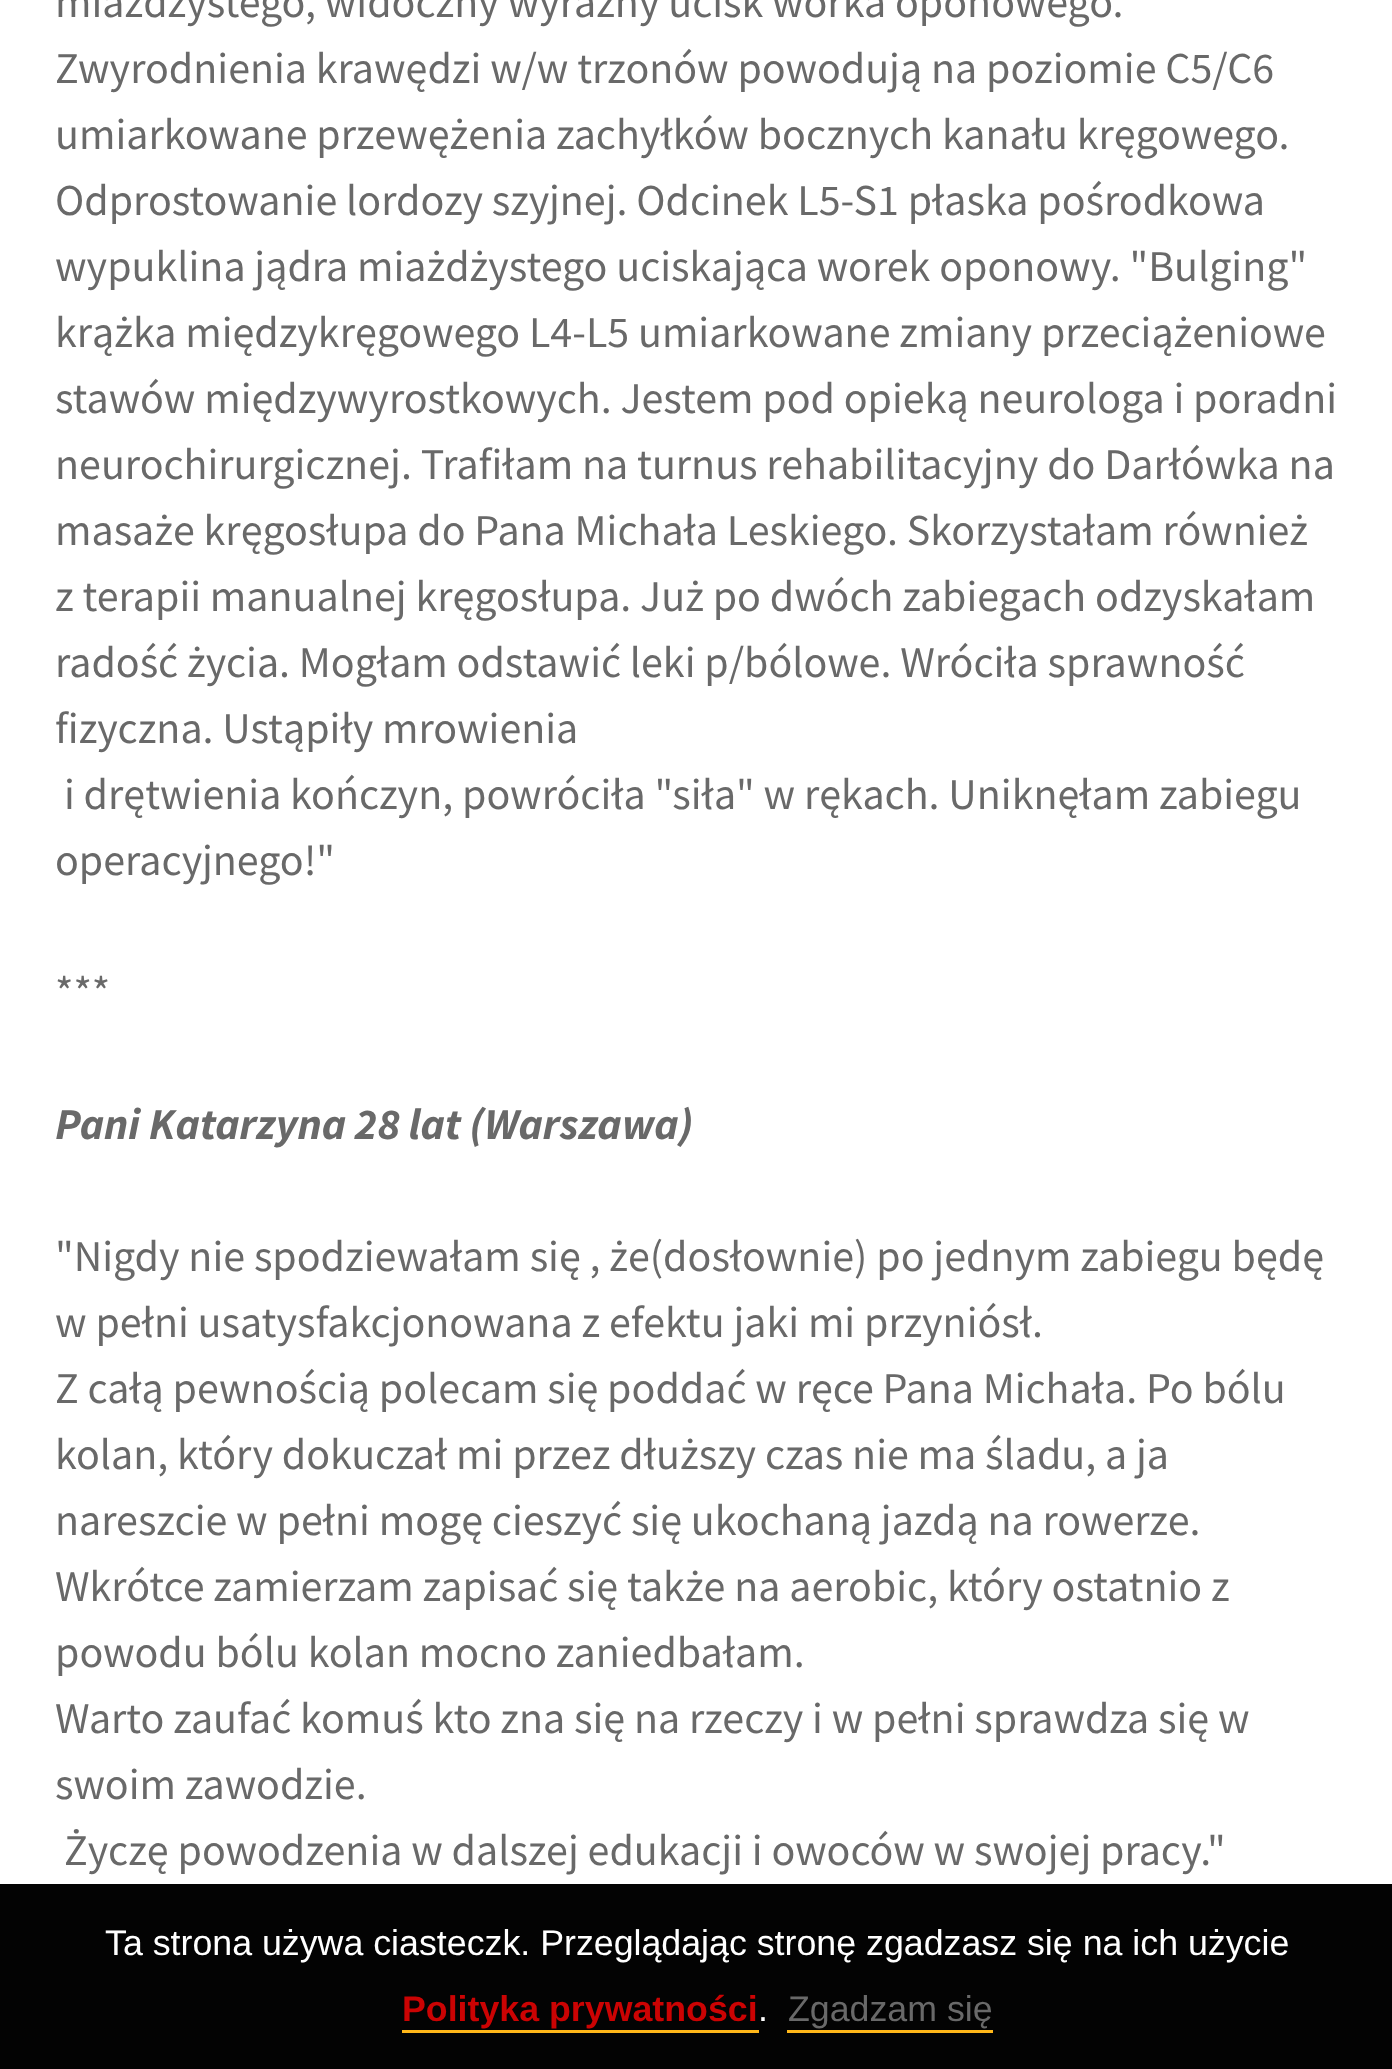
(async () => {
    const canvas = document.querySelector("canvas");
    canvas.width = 1392;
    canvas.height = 2069;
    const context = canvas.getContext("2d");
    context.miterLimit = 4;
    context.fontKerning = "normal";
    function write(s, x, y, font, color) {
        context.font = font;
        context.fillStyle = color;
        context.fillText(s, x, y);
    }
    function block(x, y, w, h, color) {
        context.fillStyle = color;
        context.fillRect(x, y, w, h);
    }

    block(0, 0, 1392, 2069, "rgb(255, 255, 255)");
    write("miażdżystego, widoczny wyraźny ucisk worka oponowego.", 55, 17, "44px Source Sans Pro", "rgb(105, 105, 105)");
    write("Zwyrodnienia krawędzi w/w trzonów powodują na poziomie C5/C6", 55, 83, "44px Source Sans Pro", "rgb(105, 105, 105)");
    write("umiarkowane przewężenia zachyłków bocznych kanału kręgowego.", 55, 149, "44px Source Sans Pro", "rgb(105, 105, 105)");
    write("Odprostowanie lordozy szyjnej. Odcinek L5-S1 płaska pośrodkowa", 55, 215, "44px Source Sans Pro", "rgb(105, 105, 105)");
    write("wypuklina jądra miażdżystego uciskająca worek oponowy. \"Bulging\"", 55, 281, "44px Source Sans Pro", "rgb(105, 105, 105)");
    write("krążka międzykręgowego L4-L5 umiarkowane zmiany przeciążeniowe", 55, 347, "44px Source Sans Pro", "rgb(105, 105, 105)");
    write("stawów międzywyrostkowych. Jestem pod opieką neurologa i poradni", 55, 413, "44px Source Sans Pro", "rgb(105, 105, 105)");
    write("neurochirurgicznej. Trafiłam na turnus rehabilitacyjny do Darłówka na", 55, 479, "44px Source Sans Pro", "rgb(105, 105, 105)");
    write("masaże kręgosłupa do Pana Michała Leskiego. Skorzystałam również", 55, 545, "44px Source Sans Pro", "rgb(105, 105, 105)");
    write("z terapii manualnej kręgosłupa. Już po dwóch zabiegach odzyskałam", 55, 611, "44px Source Sans Pro", "rgb(105, 105, 105)");
    write("radość życia. Mogłam odstawić leki p/bólowe. Wróciła sprawność", 55, 677, "44px Source Sans Pro", "rgb(105, 105, 105)");
    write("fizyczna. Ustąpiły mrowienia", 55, 743, "44px Source Sans Pro", "rgb(105, 105, 105)");
    write("i drętwienia kończyn, powróciła \"siła\" w rękach. Uniknęłam zabiegu", 64, 809, "44px Source Sans Pro", "rgb(105, 105, 105)");
    write("operacyjnego!\"", 55, 875, "44px Source Sans Pro", "rgb(105, 105, 105)");
    write("***", 55, 1007, "44px Source Sans Pro", "rgb(105, 105, 105)");
    write("Pani Katarzyna 28 lat (Warszawa)", 55, 1139, "italic bold 44px Source Sans Pro", "rgb(105, 105, 105)");
    write("\"Nigdy nie spodziewałam się , że(dosłownie) po jednym zabiegu będę", 55, 1271, "44px Source Sans Pro", "rgb(105, 105, 105)");
    write("w pełni usatysfakcjonowana z efektu jaki mi przyniósł.", 55, 1337, "44px Source Sans Pro", "rgb(105, 105, 105)");
    write("Z całą pewnością polecam się poddać w ręce Pana Michała. Po bólu", 55, 1403, "44px Source Sans Pro", "rgb(105, 105, 105)");
    write("kolan, który dokuczał mi przez dłuższy czas nie ma śladu, a ja", 55, 1469, "44px Source Sans Pro", "rgb(105, 105, 105)");
    write("nareszcie w pełni mogę cieszyć się ukochaną jazdą na rowerze.", 55, 1535, "44px Source Sans Pro", "rgb(105, 105, 105)");
    write("Wkrótce zamierzam zapisać się także na aerobic, który ostatnio z", 55, 1601, "44px Source Sans Pro", "rgb(105, 105, 105)");
    write("powodu bólu kolan mocno zaniedbałam.", 55, 1667, "44px Source Sans Pro", "rgb(105, 105, 105)");
    write("Warto zaufać komuś kto zna się na rzeczy i w pełni sprawdza się w", 55, 1733, "44px Source Sans Pro", "rgb(105, 105, 105)");
    write("swoim zawodzie.", 55, 1799, "44px Source Sans Pro", "rgb(105, 105, 105)");
    write("Życzę powodzenia w dalszej edukacji i owoców w swojej pracy.\"", 64, 1865, "44px Source Sans Pro", "rgb(105, 105, 105)");
    block(0, 1884, 1392, 185, "rgb(3, 3, 3)");
    write("Ta strona używa ciasteczk. Przeglądając stronę zgadzasz się na ich użycie", 105, 1955, "35.75px Liberation Sans", "rgb(255, 255, 255)");
    write("Polityka prywatności", 402, 2021, "bold 35.75px Liberation Sans", "rgb(203, 3, 3)");
    block(402, 2030, 357, 3, "rgb(255, 183, 25)");
    write(".", 758, 2021, "35.75px Liberation Sans", "rgb(255, 255, 255)");
    write("Zgadzam się", 788, 2021, "35.75px Liberation Sans", "rgb(105, 105, 105)");
    block(787, 2030, 206, 3, "rgb(255, 183, 25)");
})();
